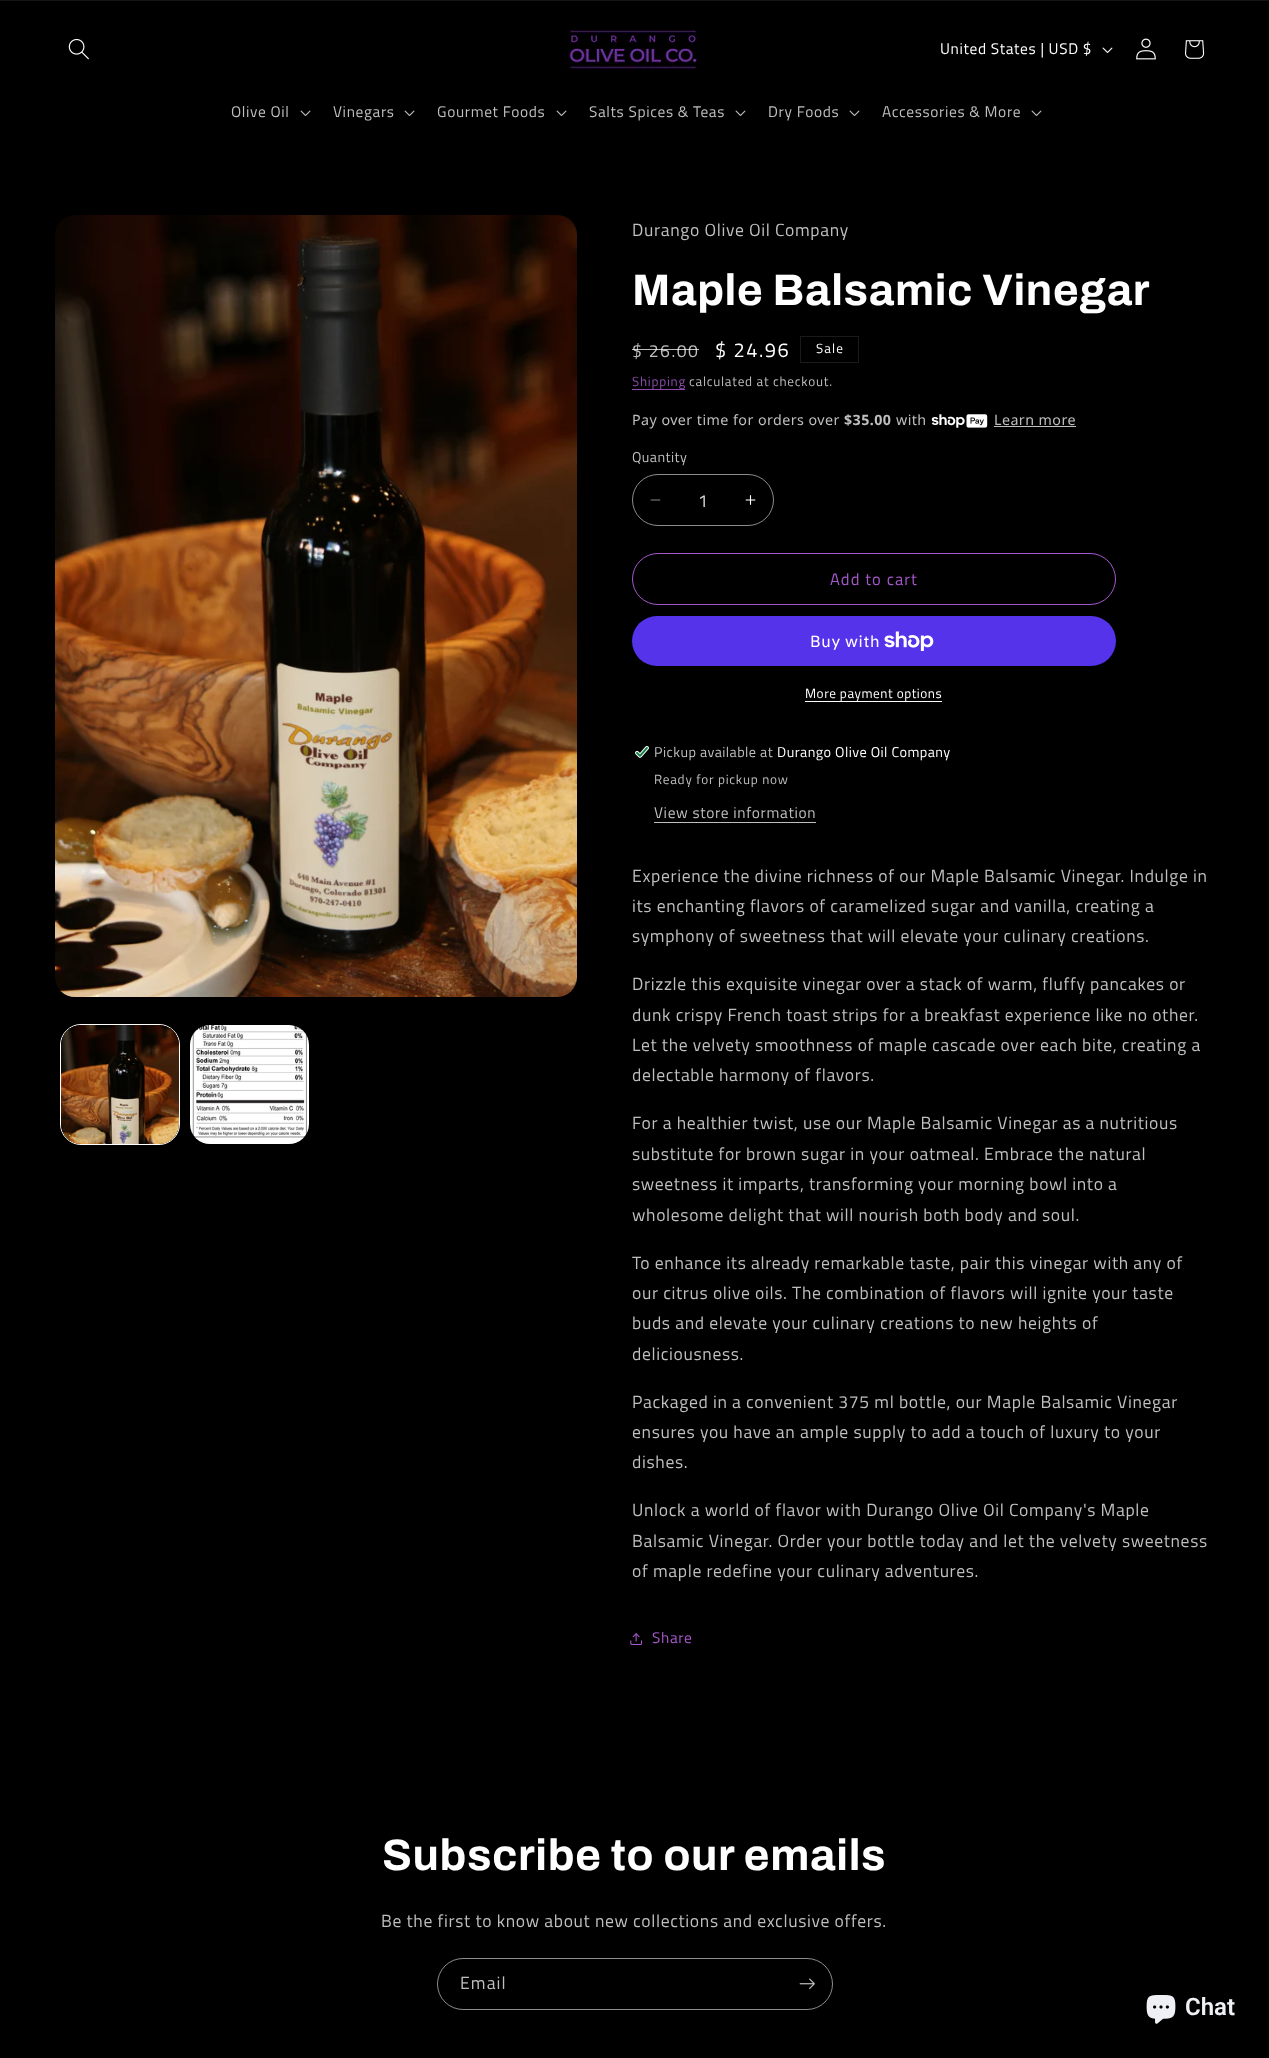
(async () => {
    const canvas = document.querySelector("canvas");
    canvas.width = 1269;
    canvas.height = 2058;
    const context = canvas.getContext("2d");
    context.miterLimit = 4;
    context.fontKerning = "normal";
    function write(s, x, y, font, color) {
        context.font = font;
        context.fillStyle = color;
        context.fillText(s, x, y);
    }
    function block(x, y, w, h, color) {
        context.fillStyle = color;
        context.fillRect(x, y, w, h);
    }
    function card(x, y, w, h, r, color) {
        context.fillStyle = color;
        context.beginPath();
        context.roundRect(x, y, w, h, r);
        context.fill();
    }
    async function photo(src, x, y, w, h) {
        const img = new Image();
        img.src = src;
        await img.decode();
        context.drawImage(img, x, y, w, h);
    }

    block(0, 0, 1269, 2058, "rgb(0, 0, 0)");
    block(0, 0, 1269, 1, "rgb(20, 20, 20)");
    await photo("media/1.png", 68, 38, 21, 22);
    await photo("media/2.png", 565, 29, 133, 40);
    context.letterSpacing = "0.65px";
    write("United States | USD $", 940, 54, "15.4px Titillium Web", "rgb(255, 255, 255)");
    await photo("media/3.png", 1102, 47, 11, 6);
    await photo("media/4.png", 1136, 38, 20, 22);
    await photo("media/5.png", 1185, 40, 20, 19);
    write("Olive Oil", 231, 117, "15.4px Titillium Web", "rgb(191, 191, 191)");
    await photo("media/6.png", 300, 110, 11, 6);
    write("Vinegars", 333, 117, "15.4px Titillium Web", "rgb(191, 191, 191)");
    await photo("media/6.png", 404, 110, 11, 6);
    write("Gourmet Foods", 437, 117, "15.4px Titillium Web", "rgb(191, 191, 191)");
    await photo("media/6.png", 556, 110, 11, 6);
    write("Salts Spices & Teas", 589, 117, "15.4px Titillium Web", "rgb(191, 191, 191)");
    await photo("media/6.png", 735, 110, 11, 6);
    write("Dry Foods", 768, 117, "15.4px Titillium Web", "rgb(191, 191, 191)");
    await photo("media/6.png", 849, 110, 11, 6);
    write("Accessories & More", 882, 117, "15.4px Titillium Web", "rgb(191, 191, 191)");
    await photo("media/6.png", 1031, 110, 11, 6);
    await photo("media/7.png", 55, 215, 522, 782);
    context.beginPath();
    context.roundRect(60.5, 1024.5, 119, 120, 20.5);
    context.strokeStyle = "rgb(255, 255, 255)";
    context.stroke();
    await photo("media/8.png", 61, 1025, 118, 119);
    await photo("media/9.png", 190, 1025, 119, 119);
    write("Durango Olive Oil Company", 632, 236, "17.6px Titillium Web", "rgb(191, 191, 191)");
    write("Maple Balsamic Vinegar", 632, 305, "bold 44px Archivo", "rgb(255, 255, 255)");
    context.letterSpacing = "1.5px";
    write("$ 26.00", 632, 357, "17.6px Titillium Web", "rgb(191, 191, 191)");
    block(632, 349, 67, 1, "rgba(255, 255, 255, 0.75)");
    write("$ 24.96", 715, 357, "20px Titillium Web", "rgb(255, 255, 255)");
    context.strokeStyle = "rgb(26, 26, 26)";
    context.strokeRect(800.5, 336.5, 58, 26);
    context.letterSpacing = "1.1px";
    write("Sale", 816, 353, "13.25px Titillium Web", "rgb(255, 255, 255)");
    block(632, 389, 53, 1, "rgb(140, 75, 172)");
    context.letterSpacing = "0.75px";
    write("Shipping", 632, 386, "13.25px Titillium Web", "rgb(140, 75, 172)");
    write("calculated at checkout.", 689, 386, "13.25px Titillium Web", "rgb(191, 191, 191)");
    context.letterSpacing = "0.45px";
    write("Pay over time for orders over", 632, 425, "14.25px Noto Sans", "rgb(191, 191, 191)");
    write("$35.00", 844, 425, "bold 14.25px Noto Sans", "rgb(191, 191, 191)");
    write("with", 896, 425, "14.25px Noto Sans", "rgb(191, 191, 191)");
    await photo("media/10.png", 931, 414, 57, 14);
    write("Learn more", 994, 425, "14.25px Noto Sans", "rgb(191, 191, 191)");
    block(994, 426, 82, 1, "rgb(191, 191, 191)");
    write("Quantity", 632, 462, "14.25px Titillium Web", "rgb(191, 191, 191)");
    await photo("media/11.png", 650, 499, 11, 2);
    await photo("media/12.png", 745, 495, 11, 10);
    context.beginPath();
    context.roundRect(632.5, 474.5, 141, 51, 25.5);
    context.strokeStyle = "rgb(140, 140, 140)";
    context.stroke();
    context.letterSpacing = "0px";
    write("1", 698, 507, "17.6px Titillium Web", "rgb(217, 217, 217)");
    context.beginPath();
    context.roundRect(632.5, 553.5, 483, 51, 25.5);
    context.strokeStyle = "rgb(165, 88, 202)";
    context.stroke();
    context.letterSpacing = "1.1px";
    write("Add to cart", 830, 585, "16.5px Titillium Web", "rgb(165, 88, 202)");
    card(632, 616, 484, 50, 25, "rgb(84, 51, 235)");
    context.letterSpacing = "0.65px";
    write("Buy with", 810, 647, "16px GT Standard", "rgb(255, 255, 255)");
    await photo("media/13.png", 884, 631, 50, 20);
    context.letterSpacing = "0.55px";
    write("More payment options", 805, 698, "13.25px Titillium Web", "rgb(255, 255, 255)");
    block(805, 701, 137, 1, "rgb(255, 255, 255)");
    await photo("media/14.png", 635, 746, 14, 12);
    context.letterSpacing = "0.45px";
    write("Pickup available at", 654, 757, "14.25px Titillium Web", "rgb(191, 191, 191)");
    write("Durango Olive Oil Company", 777, 757, "14.25px Titillium Web", "rgb(255, 255, 255)");
    context.letterSpacing = "0.75px";
    write("Ready for pickup now", 654, 784, "13.25px Titillium Web", "rgb(191, 191, 191)");
    context.letterSpacing = "0.65px";
    write("View store information", 654, 818, "15.4px Titillium Web", "rgb(191, 191, 191)");
    block(654, 822, 162, 1, "rgb(191, 191, 191)");
    write("Experience the divine richness of our Maple Balsamic Vinegar. Indulge in", 632, 882, "17.6px Titillium Web", "rgb(191, 191, 191)");
    write("its enchanting flavors of caramelized sugar and vanilla, creating a", 632, 912, "17.6px Titillium Web", "rgb(191, 191, 191)");
    write("symphony of sweetness that will elevate your culinary creations.", 632, 942, "17.6px Titillium Web", "rgb(191, 191, 191)");
    write("Drizzle this exquisite vinegar over a stack of warm, fluffy pancakes or", 632, 990, "17.6px Titillium Web", "rgb(191, 191, 191)");
    write("dunk crispy French toast strips for a breakfast experience like no other.", 632, 1021, "17.6px Titillium Web", "rgb(191, 191, 191)");
    write("Let the velvety smoothness of maple cascade over each bite, creating a", 632, 1051, "17.6px Titillium Web", "rgb(191, 191, 191)");
    write("delectable harmony of flavors.", 632, 1081, "17.6px Titillium Web", "rgb(191, 191, 191)");
    write("For a healthier twist, use our Maple Balsamic Vinegar as a nutritious", 632, 1129, "17.6px Titillium Web", "rgb(191, 191, 191)");
    write("substitute for brown sugar in your oatmeal. Embrace the natural", 632, 1160, "17.6px Titillium Web", "rgb(191, 191, 191)");
    write("sweetness it imparts, transforming your morning bowl into a", 632, 1190, "17.6px Titillium Web", "rgb(191, 191, 191)");
    write("wholesome delight that will nourish both body and soul.", 632, 1221, "17.6px Titillium Web", "rgb(191, 191, 191)");
    write("To enhance its already remarkable taste, pair this vinegar with any of", 632, 1269, "17.6px Titillium Web", "rgb(191, 191, 191)");
    write("our citrus olive oils. The combination of flavors will ignite your taste", 632, 1299, "17.6px Titillium Web", "rgb(191, 191, 191)");
    write("buds and elevate your culinary creations to new heights of", 632, 1329, "17.6px Titillium Web", "rgb(191, 191, 191)");
    write("deliciousness.", 632, 1360, "17.6px Titillium Web", "rgb(191, 191, 191)");
    write("Packaged in a convenient 375 ml bottle, our Maple Balsamic Vinegar", 632, 1408, "17.6px Titillium Web", "rgb(191, 191, 191)");
    write("ensures you have an ample supply to add a touch of luxury to your", 632, 1438, "17.6px Titillium Web", "rgb(191, 191, 191)");
    write("dishes.", 632, 1468, "17.6px Titillium Web", "rgb(191, 191, 191)");
    write("Unlock a world of flavor with Durango Olive Oil Company's Maple", 632, 1516, "17.6px Titillium Web", "rgb(191, 191, 191)");
    write("Balsamic Vinegar. Order your bottle today and let the velvety sweetness", 632, 1547, "17.6px Titillium Web", "rgb(191, 191, 191)");
    write("of maple redefine your culinary adventures.", 632, 1577, "17.6px Titillium Web", "rgb(191, 191, 191)");
    await photo("media/15.png", 630, 1633, 13, 12);
    write("Share", 652, 1643, "15.4px Titillium Web", "rgb(165, 88, 202)");
    write("Subscribe to our emails", 382, 1870, "bold 44px Archivo", "rgb(255, 255, 255)");
    write("Be the first to know about new collections and exclusive offers.", 381, 1927, "17.6px Titillium Web", "rgb(191, 191, 191)");
    context.beginPath();
    context.roundRect(437.5, 1958.5, 395, 51, 25.5);
    context.strokeStyle = "rgb(140, 140, 140)";
    context.stroke();
    context.letterSpacing = "1.1px";
    write("Email", 460, 1989, "17.6px Titillium Web", "rgb(191, 191, 191)");
    await photo("media/16.png", 799, 1978, 16, 11);
    await photo("media/17.png", 1146, 1995, 30, 29);
    context.letterSpacing = "0px";
    write("Chat", 1185, 2015, "600 24px Roboto", "rgb(239, 240, 245)");
})();
